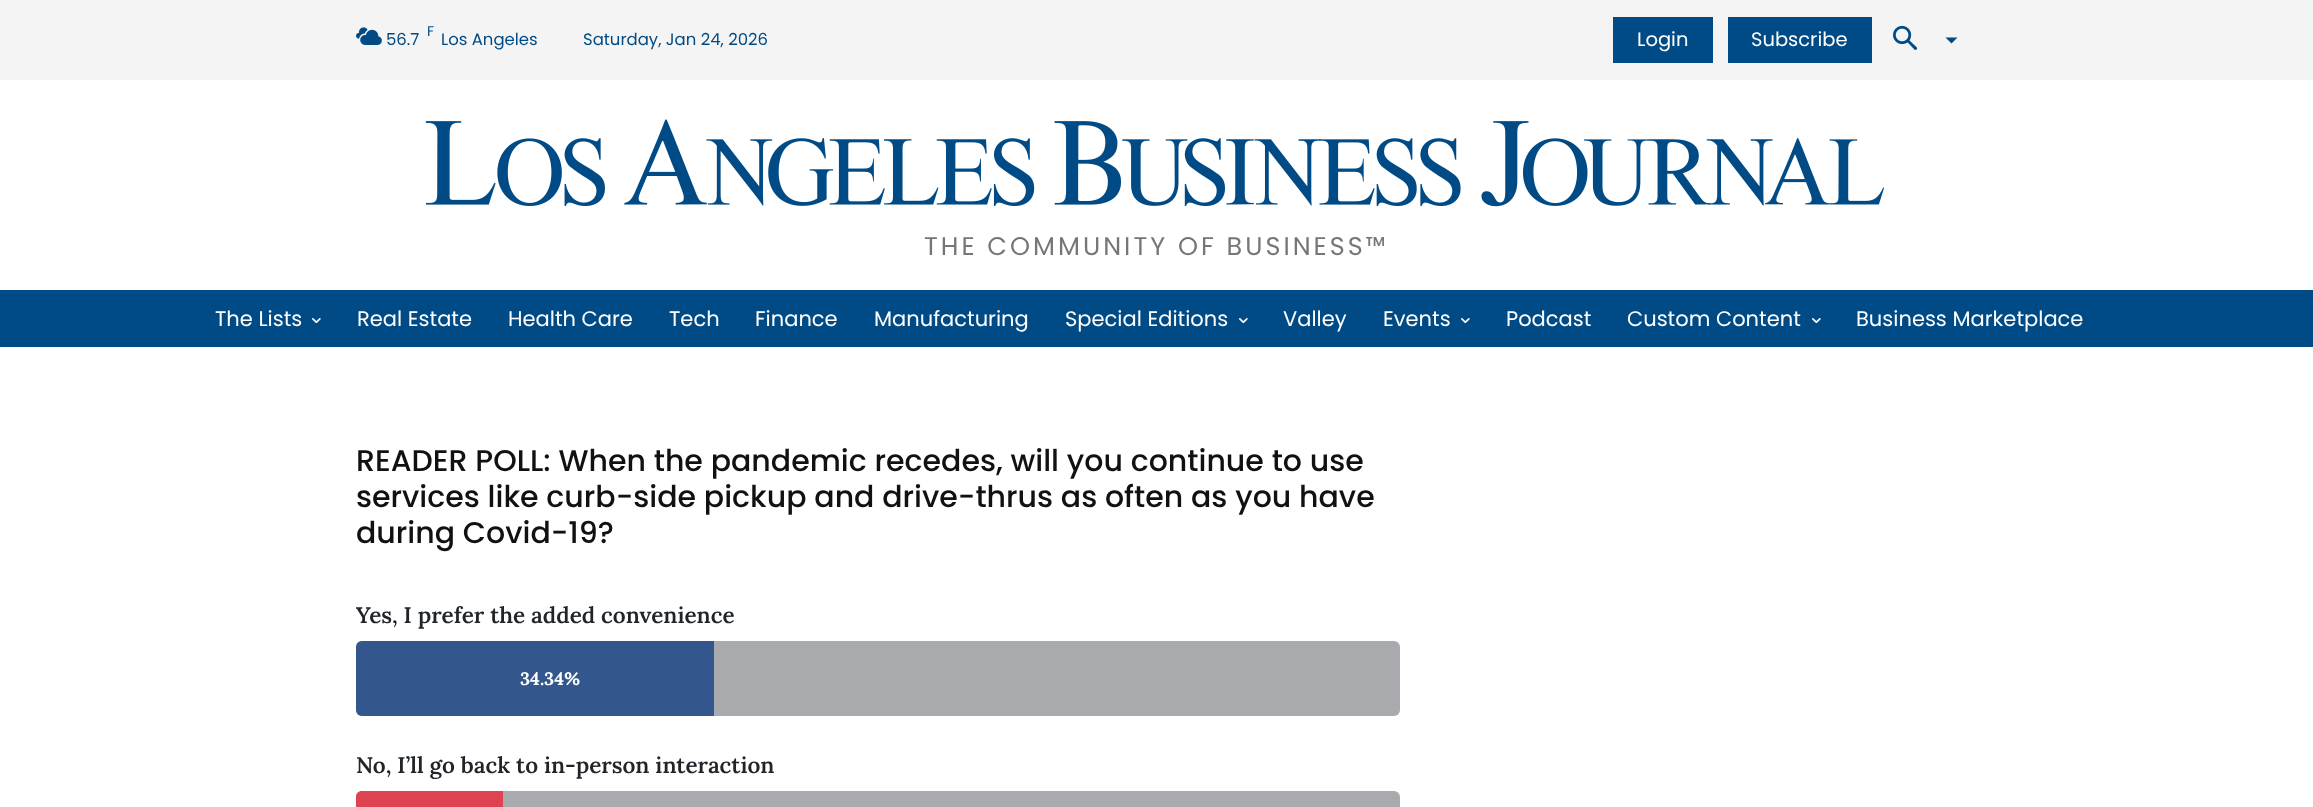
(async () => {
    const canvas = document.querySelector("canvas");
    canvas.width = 2313;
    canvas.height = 807;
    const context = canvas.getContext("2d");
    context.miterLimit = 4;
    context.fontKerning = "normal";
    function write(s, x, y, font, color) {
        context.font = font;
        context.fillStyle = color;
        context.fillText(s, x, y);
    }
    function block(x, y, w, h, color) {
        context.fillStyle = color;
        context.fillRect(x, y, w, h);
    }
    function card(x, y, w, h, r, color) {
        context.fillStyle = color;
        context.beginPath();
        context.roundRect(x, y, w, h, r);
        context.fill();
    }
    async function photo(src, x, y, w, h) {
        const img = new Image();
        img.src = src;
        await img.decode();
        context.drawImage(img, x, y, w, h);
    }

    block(0, 0, 2313, 807, "rgb(255, 255, 255)");
    block(0, 0, 2313, 80, "rgb(244, 244, 244)");
    await photo("media/1.png", 356, 27, 26, 18);
    write("F", 427, 36, "14px Poppins", "rgb(0, 75, 133)");
    write("56.7", 386, 45, "16.5px Poppins", "rgb(0, 75, 133)");
    write("Los Angeles", 441, 45, "16.5px Poppins", "rgb(0, 75, 133)");
    write("Saturday, Jan 24, 2026", 583, 45, "16.5px Poppins", "rgb(0, 75, 133)");
    block(1613, 17, 100, 46, "rgb(0, 75, 133)");
    write("Login", 1637, 46, "19.5px Poppins", "rgb(255, 255, 255)");
    block(1728, 17, 144, 46, "rgb(0, 75, 133)");
    write("Subscribe", 1751, 46, "19.5px Poppins", "rgb(255, 255, 255)");
    await photo("media/2.png", 1893, 25, 25, 25);
    context.fillStyle = "rgb(0, 75, 133)";
    context.beginPath();
    context.moveTo(1945.5, 37.5);
    context.lineTo(1957.5, 37.5);
    context.lineTo(1951.5, 43.5);
    context.closePath();
    context.fill();
    await photo("media/3.png", 425, 119, 1459, 88);
    context.letterSpacing = "3px";
    write("THE COMMUNITY OF BUSINESS™", 924, 255, "25.5px Poppins", "rgb(118, 118, 118)");
    block(0, 290, 2313, 57, "rgb(0, 75, 133)");
    context.letterSpacing = "0px";
    write("The Lists", 215, 326, "21px Poppins", "rgb(255, 255, 255)");
    await photo("media/4.png", 312, 318, 9, 6);
    write("Real Estate", 357, 326, "21px Poppins", "rgb(255, 255, 255)");
    write("Health Care", 508, 326, "21px Poppins", "rgb(255, 255, 255)");
    write("Tech", 669, 326, "21px Poppins", "rgb(255, 255, 255)");
    write("Finance", 755, 326, "21px Poppins", "rgb(255, 255, 255)");
    write("Manufacturing", 874, 326, "21px Poppins", "rgb(255, 255, 255)");
    write("Special Editions", 1065, 326, "21px Poppins", "rgb(255, 255, 255)");
    await photo("media/4.png", 1239, 318, 9, 6);
    write("Valley", 1283, 326, "21px Poppins", "rgb(255, 255, 255)");
    write("Events", 1383, 326, "21px Poppins", "rgb(255, 255, 255)");
    await photo("media/4.png", 1461, 318, 9, 6);
    write("Podcast", 1506, 326, "21px Poppins", "rgb(255, 255, 255)");
    write("Custom Content", 1627, 326, "21px Poppins", "rgb(255, 255, 255)");
    await photo("media/4.png", 1812, 318, 9, 6);
    write("Business Marketplace", 1856, 326, "21px Poppins", "rgb(255, 255, 255)");
    write("READER POLL: When the pandemic recedes, will you continue to use", 356, 471, "500 30px Poppins", "rgb(17, 17, 17)");
    write("services like curb-side pickup and drive-thrus as often as you have", 356, 507, "500 30px Poppins", "rgb(17, 17, 17)");
    write("during Covid-19?", 356, 543, "500 30px Poppins", "rgb(17, 17, 17)");
    write("Yes, I prefer the added convenience", 356, 623, "600 22.5px Lora", "rgb(33, 37, 41)");
    card(356, 641, 1044, 75, 6, "rgb(168, 170, 173)");
    context.fillStyle = "rgb(36, 75, 133)";
    context.beginPath();
    context.roundRect(356, 641, 358, 75, [6, 0, 0, 6]);
    context.fill();
    context.fillStyle = "rgba(255, 255, 255, 0.07)";
    context.beginPath();
    context.roundRect(356, 641, 358, 75, [6, 0, 0, 6]);
    context.fill();
    write("34.34%", 520, 685, "bold 18px Lora", "rgb(255, 255, 255)");
    write("No, I’ll go back to in-person interaction", 356, 773, "600 22.5px Lora", "rgb(33, 37, 41)");
    card(356, 791, 1044, 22, 6, "rgb(168, 170, 173)");
    context.fillStyle = "rgb(220, 53, 69)";
    context.beginPath();
    context.moveTo(362, 791);
    context.lineTo(503, 791);
    context.lineTo(503, 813);
    context.lineTo(362, 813);
    context.bezierCurveTo(358.5, 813, 356, 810.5, 356, 807);
    context.lineTo(356, 797);
    context.bezierCurveTo(356, 793.5, 358.5, 791, 362, 791);
    context.closePath();
    context.fill();
    context.fillStyle = "rgba(255, 255, 255, 0.07)";
    context.beginPath();
    context.moveTo(362, 791);
    context.lineTo(503, 791);
    context.lineTo(503, 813);
    context.lineTo(362, 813);
    context.bezierCurveTo(358.5, 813, 356, 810.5, 356, 807);
    context.lineTo(356, 797);
    context.bezierCurveTo(356, 793.5, 358.5, 791, 362, 791);
    context.closePath();
    context.fill();
})();
